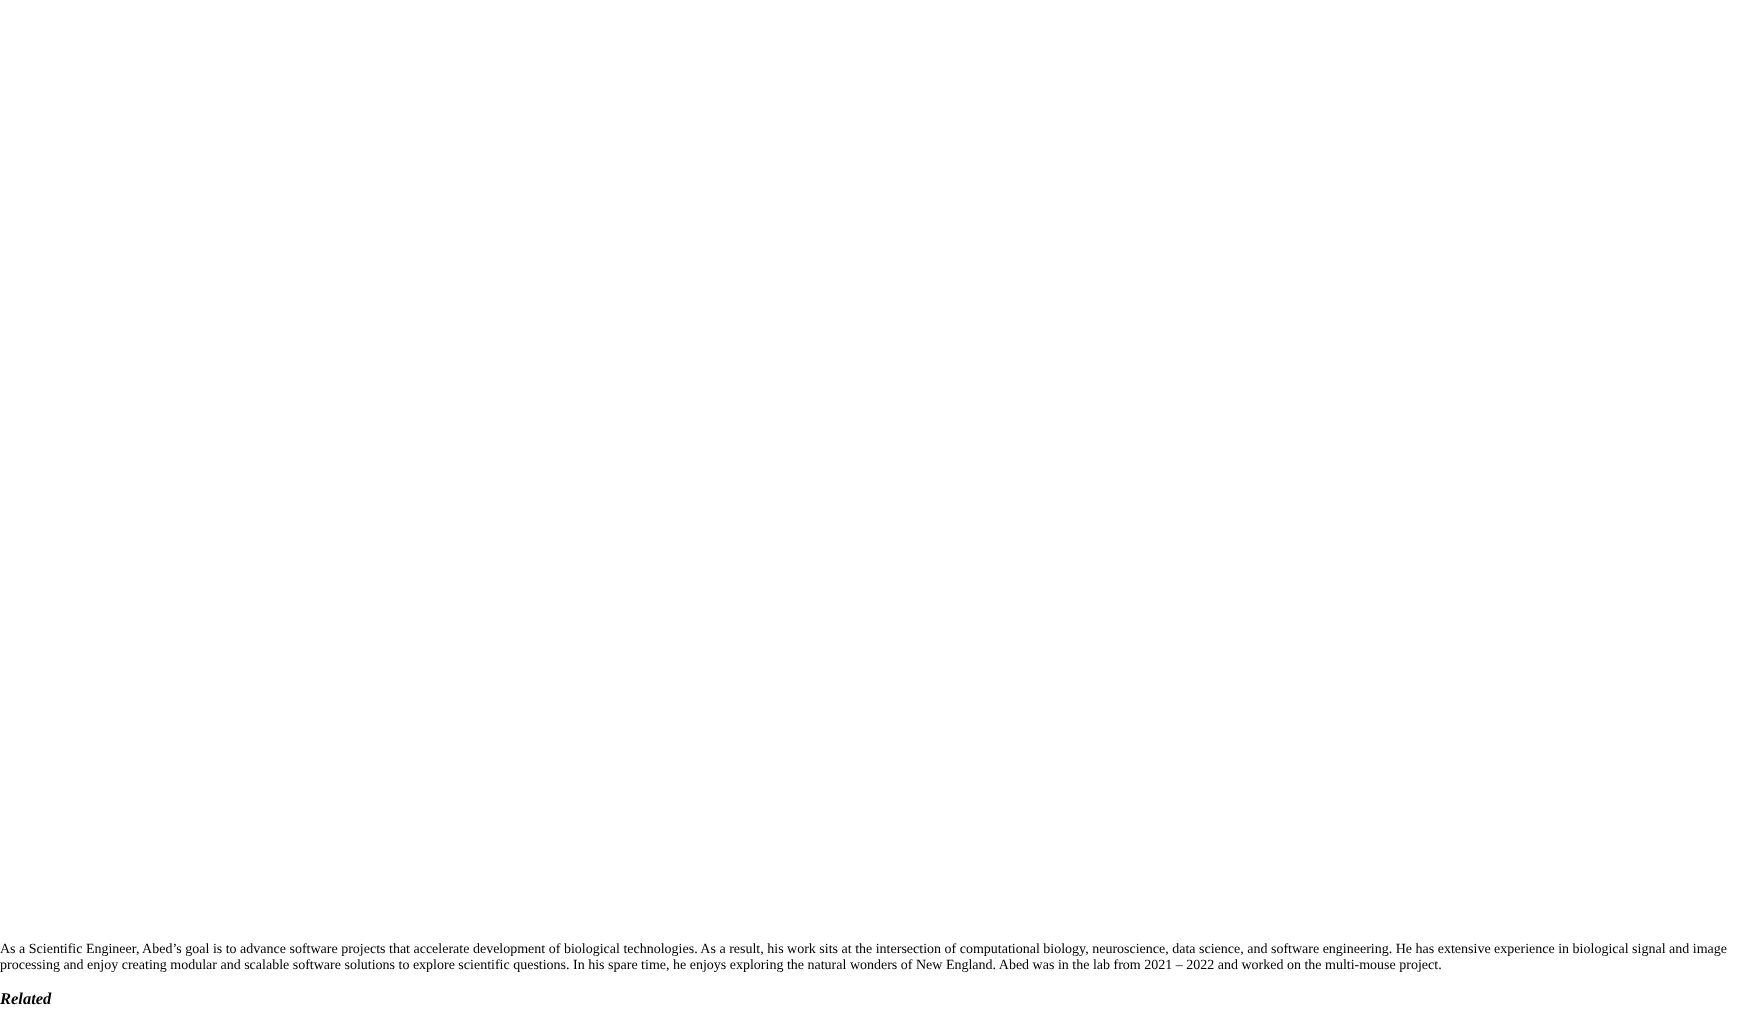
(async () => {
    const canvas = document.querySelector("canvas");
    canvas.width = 1739;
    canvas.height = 1036;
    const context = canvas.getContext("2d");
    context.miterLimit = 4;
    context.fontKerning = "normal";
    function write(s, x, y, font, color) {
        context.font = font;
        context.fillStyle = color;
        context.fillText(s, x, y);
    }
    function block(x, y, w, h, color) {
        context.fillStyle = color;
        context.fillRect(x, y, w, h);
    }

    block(0, 0, 1739, 1036, "rgb(255, 255, 255)");
    write("As a Scientific Engineer, Abed’s goal is to advance software projects that accelerate development of biological technologies. As a result, his work sits at the intersection of computational biology, neuroscience, data science, and software engineering. He has extensive experience in biological signal and image", 0, 953, "14px Liberation Serif", "rgb(0, 0, 0)");
    write("processing and enjoy creating modular and scalable software solutions to explore scientific questions. In his spare time, he enjoys exploring the natural wonders of New England. Abed was in the lab from 2021 – 2022 and worked on the multi-mouse project.", 0, 969, "14px Liberation Serif", "rgb(0, 0, 0)");
    write("Related", 0, 1004, "italic bold 16.5px Liberation Serif", "rgb(0, 0, 0)");
})();
